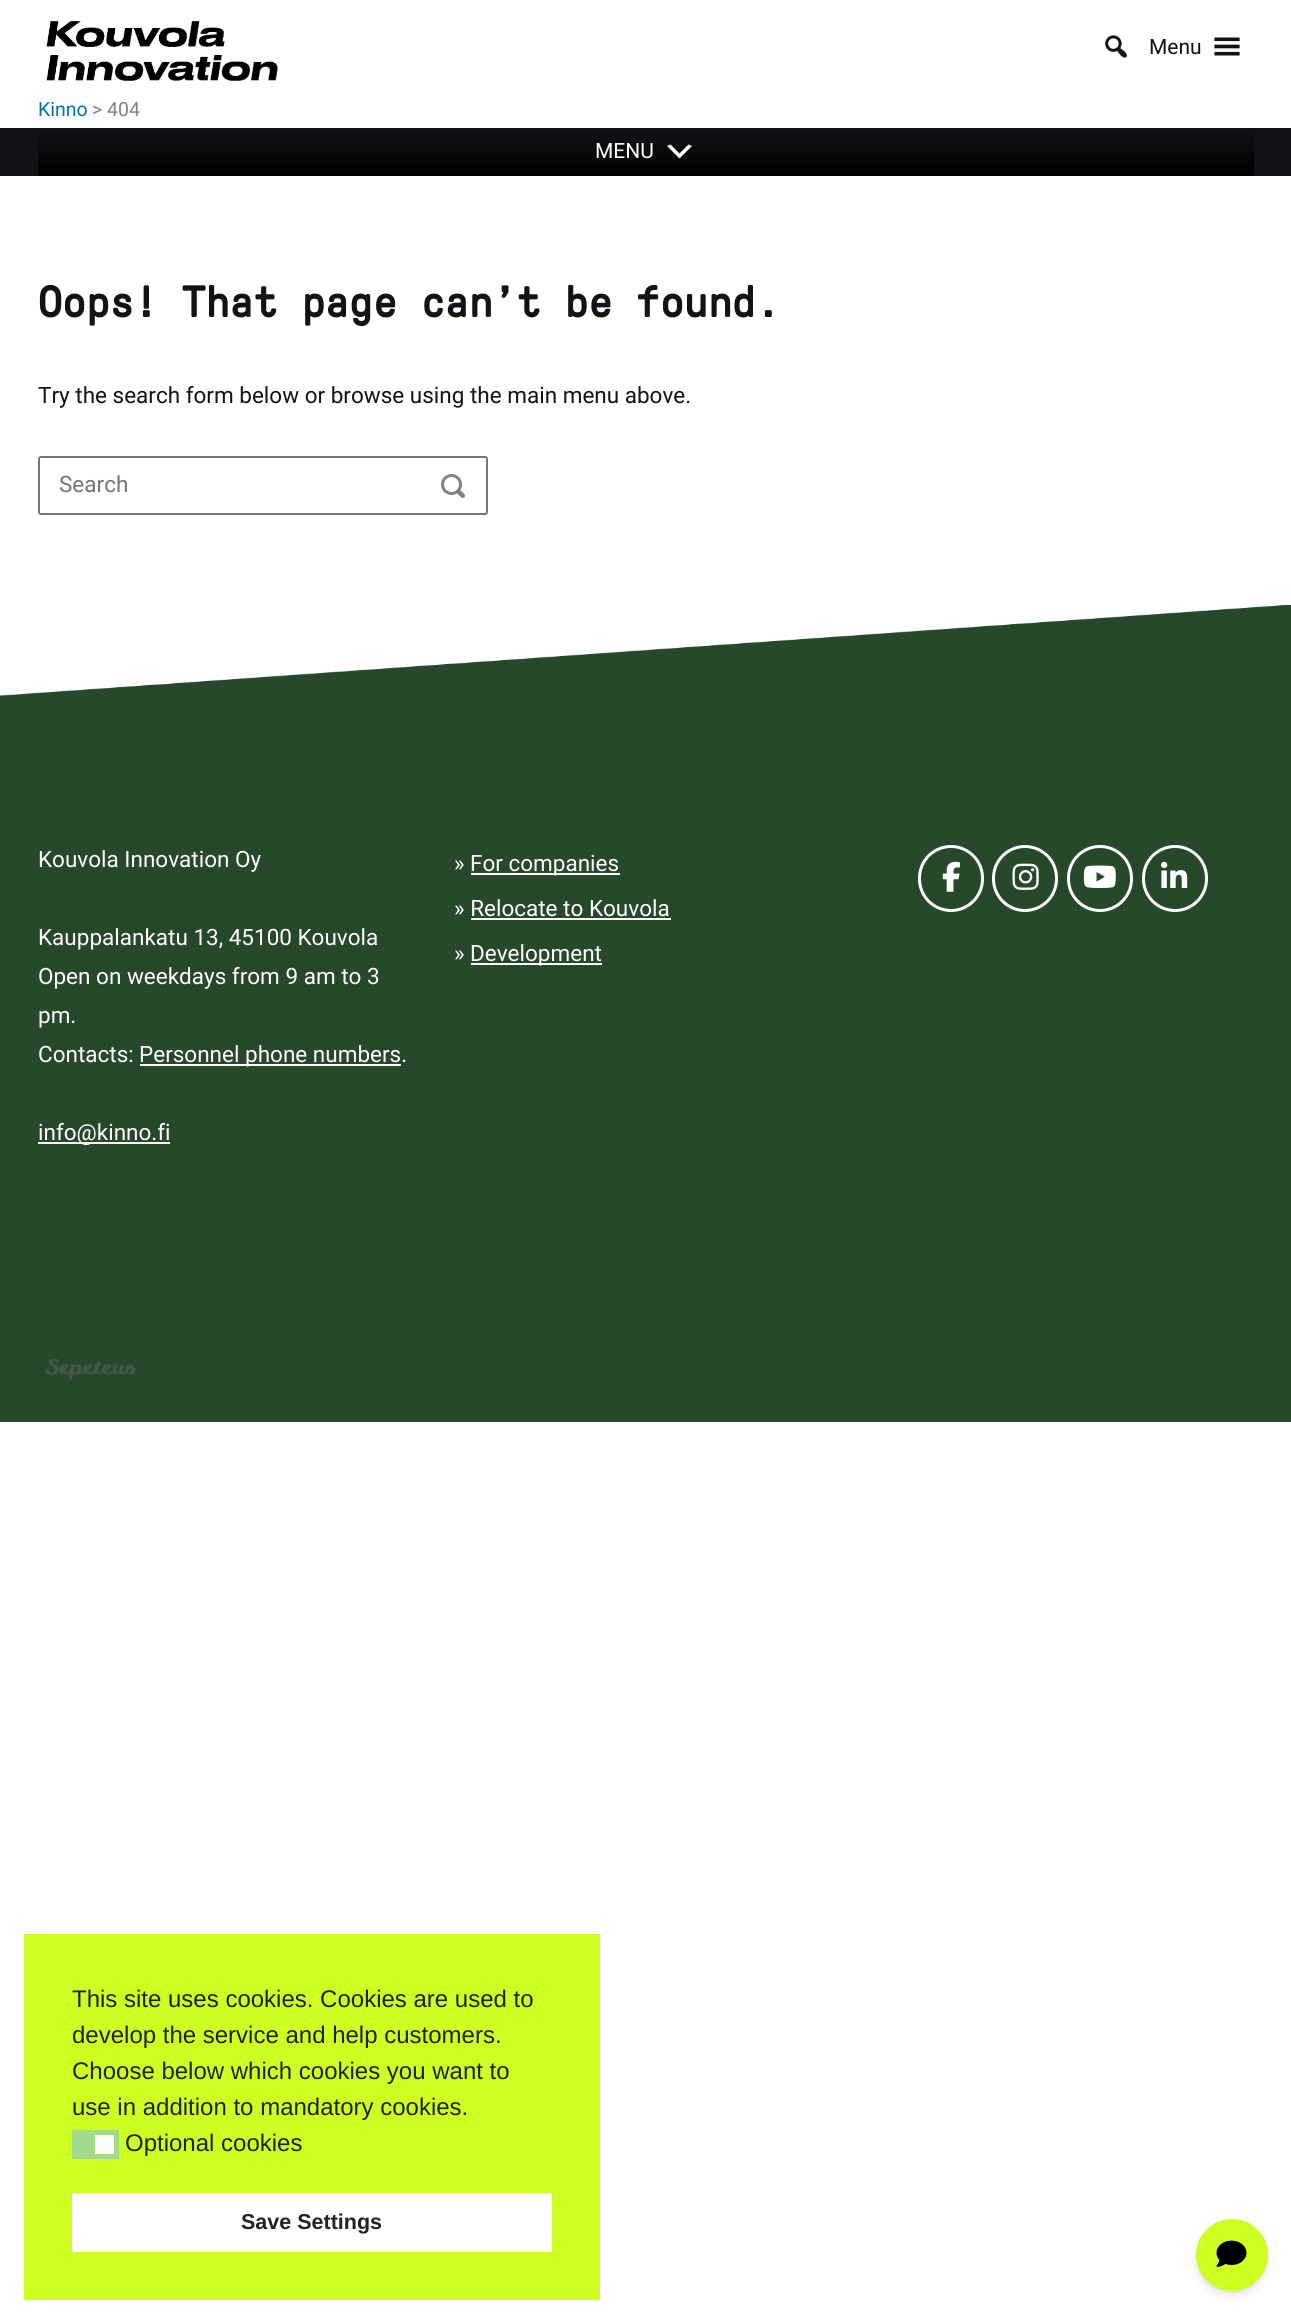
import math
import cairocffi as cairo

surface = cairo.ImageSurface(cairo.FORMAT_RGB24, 1291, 2323)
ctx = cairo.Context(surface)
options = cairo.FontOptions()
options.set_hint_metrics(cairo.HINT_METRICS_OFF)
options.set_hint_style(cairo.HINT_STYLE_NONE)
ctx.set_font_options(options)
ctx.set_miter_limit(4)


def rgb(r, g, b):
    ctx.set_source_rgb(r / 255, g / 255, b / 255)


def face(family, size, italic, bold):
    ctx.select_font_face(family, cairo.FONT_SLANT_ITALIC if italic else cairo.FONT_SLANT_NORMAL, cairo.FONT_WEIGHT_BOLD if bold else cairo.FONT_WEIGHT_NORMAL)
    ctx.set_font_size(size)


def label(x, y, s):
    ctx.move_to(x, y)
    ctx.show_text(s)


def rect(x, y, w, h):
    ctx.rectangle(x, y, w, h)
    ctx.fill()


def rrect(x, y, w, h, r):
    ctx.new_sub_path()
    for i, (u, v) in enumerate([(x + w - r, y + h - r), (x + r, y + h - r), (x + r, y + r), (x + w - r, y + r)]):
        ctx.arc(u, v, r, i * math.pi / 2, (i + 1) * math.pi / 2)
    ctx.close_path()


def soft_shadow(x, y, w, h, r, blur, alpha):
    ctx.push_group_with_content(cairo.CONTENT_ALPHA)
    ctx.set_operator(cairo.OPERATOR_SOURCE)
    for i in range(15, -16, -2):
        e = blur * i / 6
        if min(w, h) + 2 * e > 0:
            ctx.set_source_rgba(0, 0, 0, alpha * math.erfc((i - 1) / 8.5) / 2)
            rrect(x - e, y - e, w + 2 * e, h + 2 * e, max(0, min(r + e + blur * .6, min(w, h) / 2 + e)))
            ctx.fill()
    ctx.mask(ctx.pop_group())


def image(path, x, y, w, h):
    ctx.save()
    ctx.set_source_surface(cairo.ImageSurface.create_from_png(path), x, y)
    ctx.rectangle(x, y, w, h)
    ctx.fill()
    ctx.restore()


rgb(255, 255, 255)
ctx.paint()
image('image0.png', 46, 21, 232, 60)
image('image1.png', 1105, 35, 22, 23)
face('Roboto', 21, 0, 0)
rgb(17, 19, 23)
label(1149, 54, 'Menu')
image('image2.png', 1214, 37, 26, 19)
face('Roboto', 19.5, 0, 0)
rgb(0, 115, 170)
label(38, 116, 'Kinno')
rgb(130, 130, 130)
label(92, 116, '> 404')
rgb(17, 19, 23)
rect(0, 128, 1291, 48)
gradient = cairo.LinearGradient(646, 127, 646, 176)
gradient.add_color_stop_rgba(0, 0.067, 0.075, 0.09, 1)
gradient.add_color_stop_rgba(1, 0, 0, 0, 1)
ctx.set_source(gradient)
rrect(38, 128, 1216, 48, 3)
ctx.fill()
face('Roboto', 21, 0, 0)
rgb(255, 255, 255)
label(595, 158, 'MENU')
ctx.new_path()
ctx.move_to(670.5, 144.5)
ctx.line_to(679.5, 153.5)
ctx.line_to(688.5, 144.5)
ctx.line_to(692, 146)
ctx.line_to(679.5, 158.5)
ctx.line_to(667, 146)
ctx.close_path()
ctx.fill()
face('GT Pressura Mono', 43.5, 0, 1)
rgb(17, 19, 23)
label(38, 317, 'Oops! That page can’t be found.')
face('Roboto', 22.5, 0, 0)
label(38, 403, 'Try the search form below or browse using the main menu above.')
rrect(39, 457, 448, 57, 2)
rgb(119, 119, 119)
ctx.stroke()
rgb(117, 117, 117)
label(59, 492, 'Search')
image('image3.png', 441, 474, 24, 24)
rgb(40, 72, 43)
rect(0, 605, 1291, 817)
image('image4.png', 0, 605, 1289, 91)
rgb(255, 255, 255)
label(38, 867, 'Kouvola Innovation Oy')
label(38, 945, 'Kauppalankatu 13, 45100 Kouvola')
label(38, 984, 'Open on weekdays from 9 am to 3')
label(38, 1023, 'pm.')
label(38, 1062, 'Contacts:')
rect(140, 1064, 261, 2)
label(139, 1062, 'Personnel phone numbers.')
rect(38, 1142, 132, 2)
label(38, 1140, 'info@kinno.fi')
label(454, 871, '»')
rect(471, 873, 149, 2)
label(470, 871, 'For companies')
label(454, 916, '» Relocate to Kouvola')
rect(471, 918, 200, 2)
label(454, 961, '»')
rect(471, 963, 131, 2)
label(470, 961, 'Development')
rrect(919.5, 846.5, 63, 64, 31.5)
ctx.set_line_width(3)
ctx.stroke()
image('image5.png', 942, 861, 18, 31)
rrect(993.5, 846.5, 63, 64, 31.5)
ctx.stroke()
image('image6.png', 1012, 863, 27, 27)
rrect(1068.5, 846.5, 63, 64, 31.5)
ctx.stroke()
image('image7.png', 1083, 865, 33, 23)
rrect(1143.5, 846.5, 63, 64, 31.5)
ctx.stroke()
image('image8.png', 1161, 861, 27, 27)
image('image9.png', 45, 1359, 91, 21)
rgb(206, 255, 35)
rect(24, 1934, 576, 366)
face('Liberation Sans', 24, 0, 0)
rgb(34, 34, 34)
label(72, 2007, 'This site uses cookies. Cookies are used to')
label(72, 2043, 'develop the service and help customers.')
label(72, 2079, 'Choose below which cookies you want to')
label(72, 2115, 'use in addition to mandatory cookies.')
rgb(160, 219, 142)
rect(72, 2130, 47, 29)
rgb(255, 255, 255)
rect(95, 2135, 19, 19)
rgb(34, 34, 34)
label(125, 2151, 'Optional cookies')
rgb(255, 255, 255)
rect(72, 2193, 480, 59)
face('Liberation Sans', 21.5, 0, 1)
rgb(34, 34, 34)
label(241, 2229, 'Save Settings')
rgb(0, 0, 0)
soft_shadow(1197, 2223, 69, 69, 34.5, 3, 0.06)
soft_shadow(1197, 2226, 69, 69, 34.5, 4.5, 0.1)
rgb(206, 255, 35)
ctx.arc(1232, 2255, 36, 0, 2 * math.pi)
ctx.fill()
image('image10.png', 1216, 2240, 31, 27)
surface.write_to_png('render.png')
